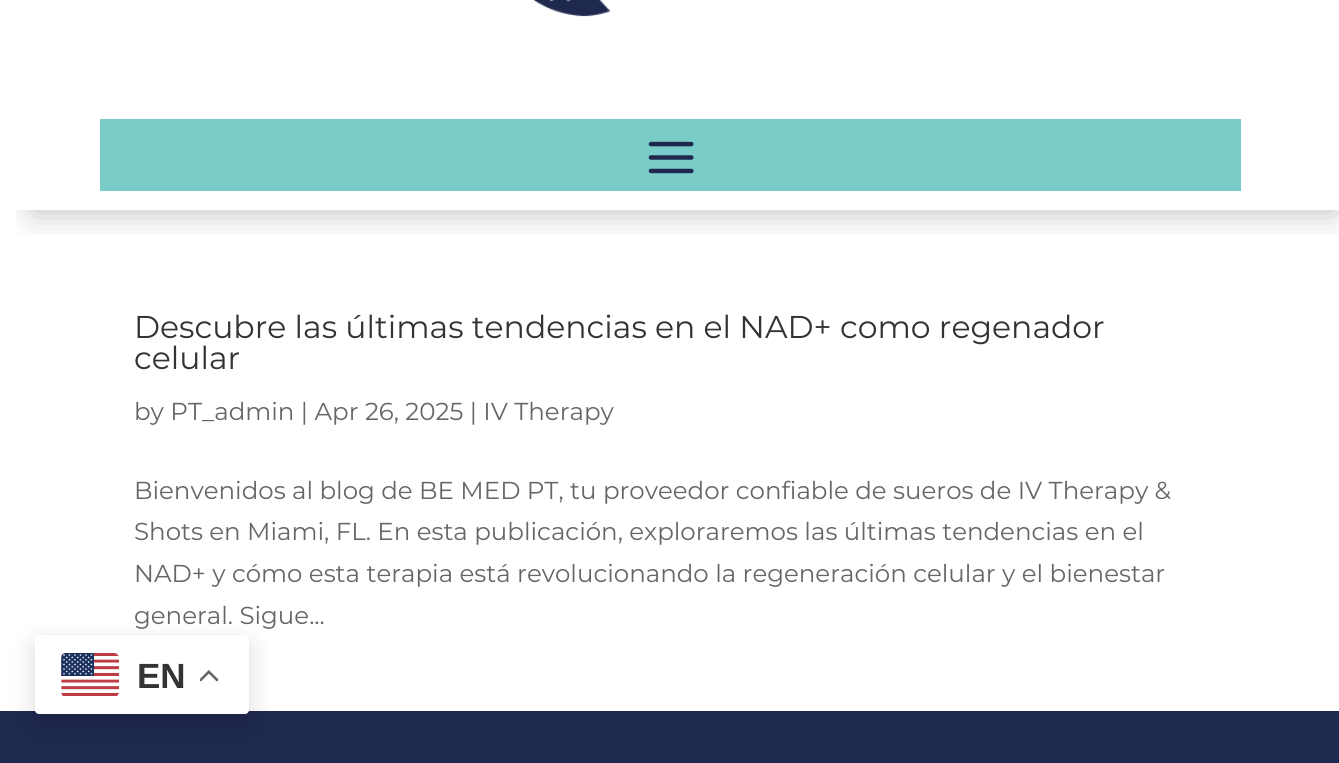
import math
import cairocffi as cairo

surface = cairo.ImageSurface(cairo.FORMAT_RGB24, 1339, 763)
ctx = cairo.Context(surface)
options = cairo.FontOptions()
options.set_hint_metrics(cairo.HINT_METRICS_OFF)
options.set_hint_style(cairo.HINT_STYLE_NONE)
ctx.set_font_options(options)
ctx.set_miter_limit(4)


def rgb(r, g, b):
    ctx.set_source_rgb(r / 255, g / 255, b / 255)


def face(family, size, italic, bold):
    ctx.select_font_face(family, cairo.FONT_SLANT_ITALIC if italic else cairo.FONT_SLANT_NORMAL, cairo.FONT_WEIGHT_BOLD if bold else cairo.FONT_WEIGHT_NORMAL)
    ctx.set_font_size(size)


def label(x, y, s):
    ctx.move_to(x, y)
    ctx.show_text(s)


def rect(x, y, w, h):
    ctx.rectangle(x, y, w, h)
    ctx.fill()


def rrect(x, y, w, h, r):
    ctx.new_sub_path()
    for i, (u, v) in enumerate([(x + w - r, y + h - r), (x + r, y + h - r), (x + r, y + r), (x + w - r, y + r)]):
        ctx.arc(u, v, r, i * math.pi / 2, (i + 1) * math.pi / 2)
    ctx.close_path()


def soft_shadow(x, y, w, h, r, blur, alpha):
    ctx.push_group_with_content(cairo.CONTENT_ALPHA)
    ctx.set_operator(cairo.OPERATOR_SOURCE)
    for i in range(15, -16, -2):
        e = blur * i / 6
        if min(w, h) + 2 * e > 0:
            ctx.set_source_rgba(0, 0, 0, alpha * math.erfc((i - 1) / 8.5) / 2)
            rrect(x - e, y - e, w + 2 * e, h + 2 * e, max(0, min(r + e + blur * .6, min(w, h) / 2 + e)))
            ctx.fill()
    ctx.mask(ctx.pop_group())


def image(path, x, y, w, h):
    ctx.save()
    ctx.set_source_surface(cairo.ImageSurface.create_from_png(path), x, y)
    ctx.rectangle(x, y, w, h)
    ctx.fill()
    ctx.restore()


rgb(255, 255, 255)
ctx.paint()
ctx.save()
ctx.rectangle(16, 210, 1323, 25)
ctx.clip()
rgb(0, 0, 0)
soft_shadow(33, -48, 1302, 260, 0, 16, 0.26)
ctx.restore()
image('image0.png', 533, 0, 78, 17)
rgb(122, 204, 200)
rect(100, 119, 1141, 72)
image('image1.png', 648, 141, 46, 33)
face('Montserrat', 31.5, 0, 0)
rgb(51, 51, 51)
label(134, 338, 'Descubre las últimas tendencias en el NAD+ como regenador')
label(134, 369, 'celular')
face('Montserrat', 24.5, 0, 0)
rgb(102, 102, 102)
label(134, 420, 'by PT_admin | Apr 26, 2025 | IV Therapy')
label(134, 499, 'Bienvenidos al blog de BE MED PT, tu proveedor confiable de sueros de IV Therapy &')
label(134, 540, 'Shots en Miami, FL. En esta publicación, exploraremos las últimas tendencias en el')
label(134, 582, 'NAD+ y cómo esta terapia está revolucionando la regeneración celular y el bienestar')
label(134, 624, 'general. Sigue...')
rgb(31, 40, 79)
rect(0, 711, 1339, 52)
rgb(0, 0, 0)
soft_shadow(35, 644, 214, 79, 4, 13, 0.15)
rgb(255, 255, 255)
rrect(35, 635, 214, 79, 4)
ctx.fill()
image('image2.png', 61, 653, 58, 43)
face('Liberation Sans', 35, 0, 1)
rgb(51, 51, 51)
label(137, 688, 'EN')
image('image3.png', 200, 670, 19, 12)
surface.write_to_png('render.png')
